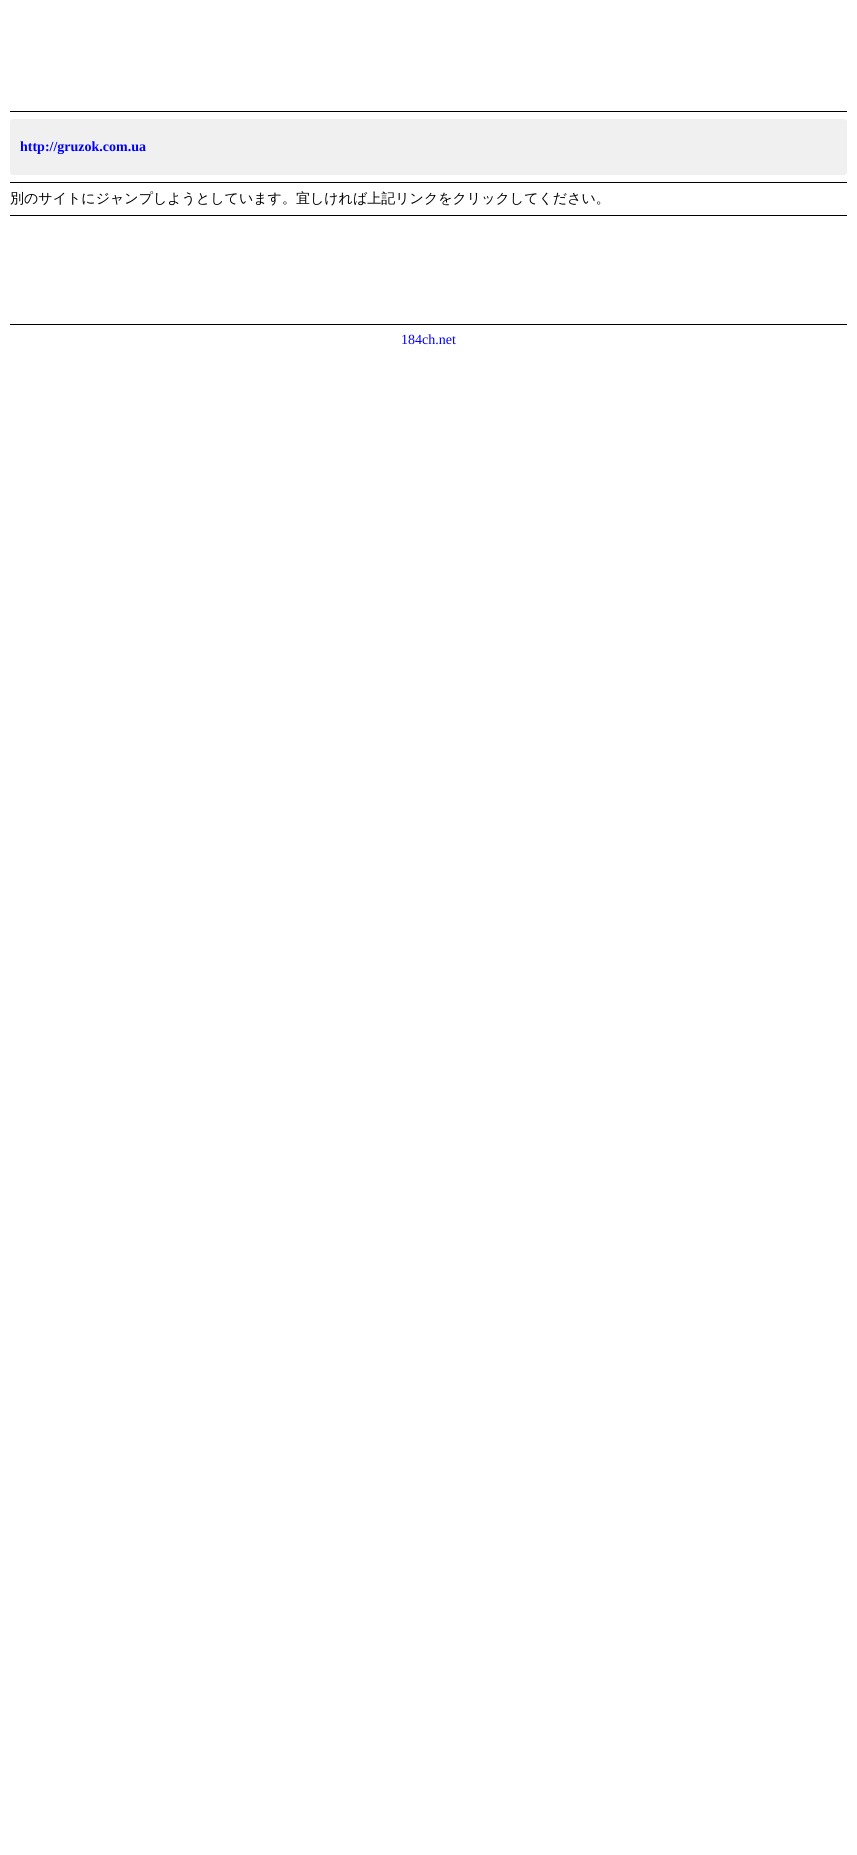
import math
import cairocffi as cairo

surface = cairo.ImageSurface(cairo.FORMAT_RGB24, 857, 1855)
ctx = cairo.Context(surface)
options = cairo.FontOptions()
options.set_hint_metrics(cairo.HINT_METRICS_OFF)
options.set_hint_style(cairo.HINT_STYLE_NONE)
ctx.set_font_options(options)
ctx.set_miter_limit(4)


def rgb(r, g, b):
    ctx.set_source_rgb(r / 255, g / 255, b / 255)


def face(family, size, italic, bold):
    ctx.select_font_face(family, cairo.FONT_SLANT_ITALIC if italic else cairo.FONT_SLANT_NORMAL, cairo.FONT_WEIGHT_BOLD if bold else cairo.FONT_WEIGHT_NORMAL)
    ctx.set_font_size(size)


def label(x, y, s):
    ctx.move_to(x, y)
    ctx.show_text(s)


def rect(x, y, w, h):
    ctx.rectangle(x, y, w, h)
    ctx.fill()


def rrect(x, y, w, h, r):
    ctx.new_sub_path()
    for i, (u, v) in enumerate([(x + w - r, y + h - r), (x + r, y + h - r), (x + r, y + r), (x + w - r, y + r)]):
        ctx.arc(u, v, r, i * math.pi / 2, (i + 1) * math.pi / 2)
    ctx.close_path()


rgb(255, 255, 255)
ctx.paint()
rgb(0, 0, 0)
rect(10, 111, 837, 1)
rgb(240, 240, 240)
rrect(10, 119, 837, 56, 3)
ctx.fill()
face('Liberation Serif', 14, 0, 1)
rgb(0, 0, 255)
label(20, 151, 'http://gruzok.com.ua')
rgb(0, 0, 0)
rect(10, 182, 837, 1)
face('WenQuanYi Zen Hei Medium', 14, 0, 0)
label(10, 203, '別のサイトにジャンプしようとしています。宜しければ上記リンクをクリックしてください。')
rect(10, 215, 837, 1)
rect(10, 324, 837, 1)
face('Liberation Serif', 14, 0, 0)
rgb(0, 0, 255)
label(401, 344, '184ch.net')
surface.write_to_png('render.png')
